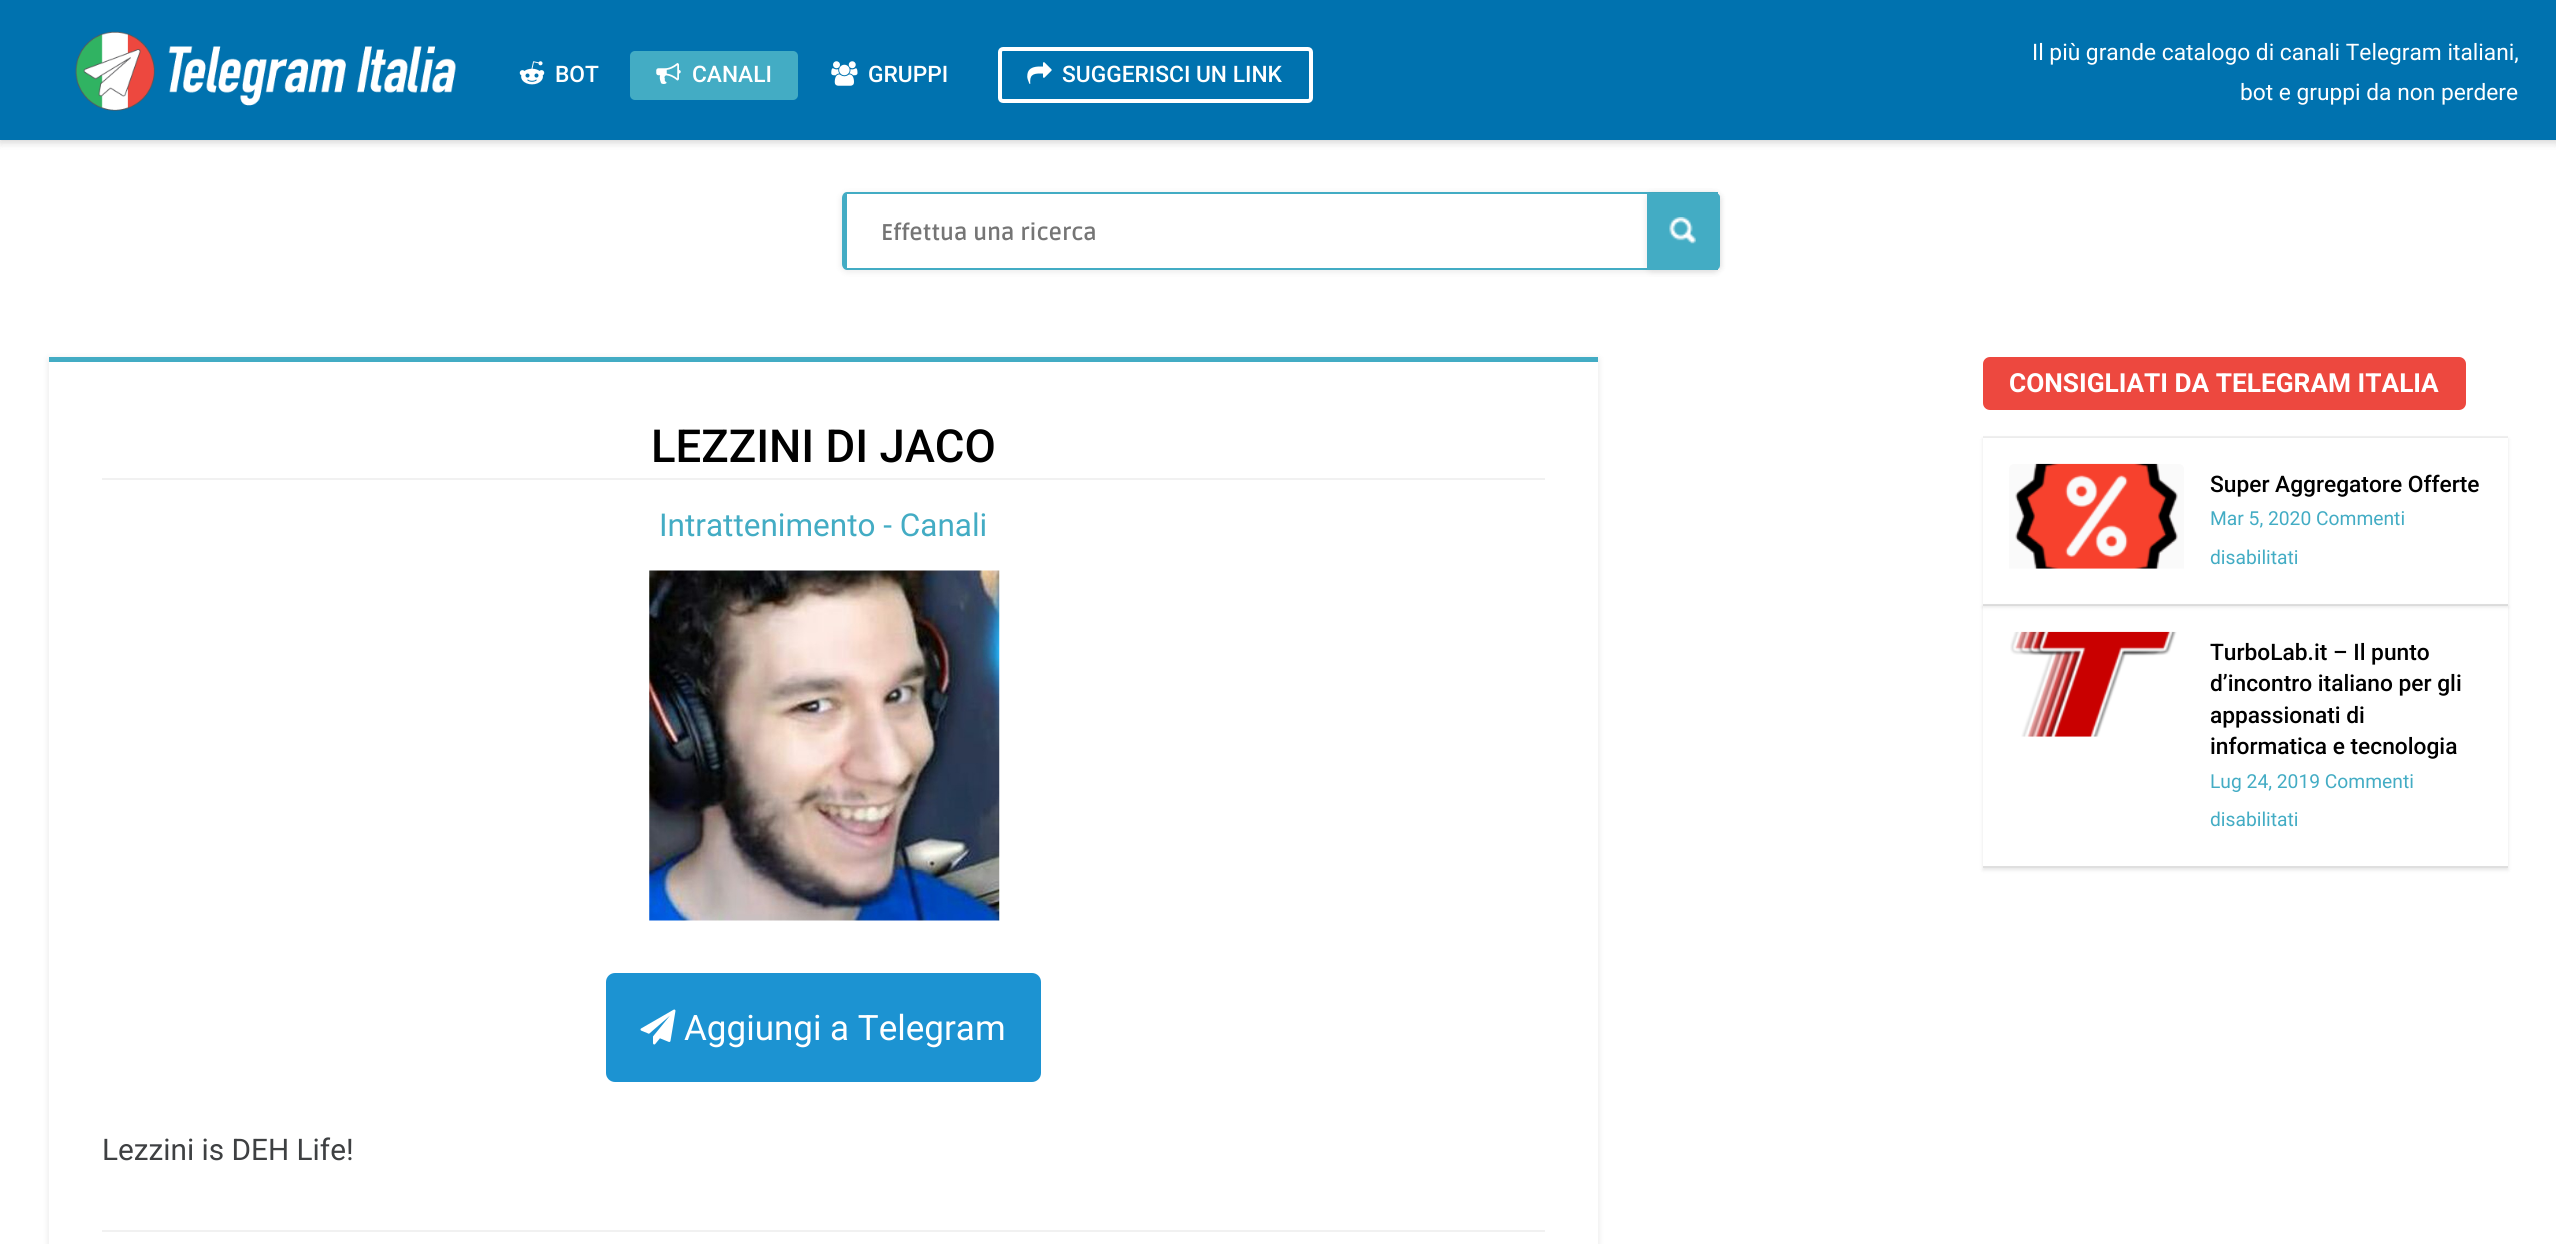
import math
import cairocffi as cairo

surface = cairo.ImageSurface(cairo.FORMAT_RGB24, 2556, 1244)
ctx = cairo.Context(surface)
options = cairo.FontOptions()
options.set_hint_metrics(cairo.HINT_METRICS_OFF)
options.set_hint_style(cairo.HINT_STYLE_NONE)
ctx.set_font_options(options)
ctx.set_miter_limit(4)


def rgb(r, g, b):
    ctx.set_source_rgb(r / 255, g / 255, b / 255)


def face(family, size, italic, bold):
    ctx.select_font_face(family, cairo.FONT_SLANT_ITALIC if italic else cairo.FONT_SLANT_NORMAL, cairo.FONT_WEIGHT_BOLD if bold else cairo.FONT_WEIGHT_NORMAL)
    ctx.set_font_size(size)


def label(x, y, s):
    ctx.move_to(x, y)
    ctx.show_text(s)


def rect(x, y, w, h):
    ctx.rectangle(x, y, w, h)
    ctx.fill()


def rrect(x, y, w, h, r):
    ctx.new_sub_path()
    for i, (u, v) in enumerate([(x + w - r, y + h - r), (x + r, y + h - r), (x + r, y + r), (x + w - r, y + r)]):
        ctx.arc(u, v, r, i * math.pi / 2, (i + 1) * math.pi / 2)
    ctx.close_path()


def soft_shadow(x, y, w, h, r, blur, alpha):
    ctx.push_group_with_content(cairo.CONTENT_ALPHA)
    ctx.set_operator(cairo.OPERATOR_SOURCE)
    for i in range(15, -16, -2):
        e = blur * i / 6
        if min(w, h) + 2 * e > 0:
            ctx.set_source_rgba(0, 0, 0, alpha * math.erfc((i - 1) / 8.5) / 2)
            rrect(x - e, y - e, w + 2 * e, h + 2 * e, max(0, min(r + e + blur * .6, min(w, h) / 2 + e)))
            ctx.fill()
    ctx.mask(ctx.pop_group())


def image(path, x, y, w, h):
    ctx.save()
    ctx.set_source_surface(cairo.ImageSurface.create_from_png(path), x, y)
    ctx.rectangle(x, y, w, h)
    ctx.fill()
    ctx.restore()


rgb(255, 255, 255)
ctx.paint()
rgb(0, 0, 0)
soft_shadow(0, 2, 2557, 140, 0, 4.5, 0.1)
soft_shadow(0, 2, 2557, 140, 0, 4.5, 0.1)
rgb(0, 114, 175)
rect(0, 0, 2556, 140)
image('image0.png', 75, 31, 381, 80)
image('image1.png', 519, 61, 26, 24)
face('Roboto Medium', 22.75, 0, 0)
rgb(255, 255, 255)
label(555, 82, 'BOT')
rgb(67, 172, 196)
rrect(630, 51, 168, 49, 5)
ctx.fill()
image('image2.png', 656, 63, 25, 21)
rgb(255, 255, 255)
label(692, 82, 'CANALI')
image('image3.png', 831, 61, 27, 25)
label(868, 82, 'GRUPPI')
rrect(1000, 49, 311, 52, 3)
ctx.set_line_width(4)
ctx.stroke()
image('image4.png', 1027, 62, 25, 22)
label(1062, 82, 'SUGGERISCI UN LINK')
face('Roboto', 22.75, 0, 0)
label(2032, 60, 'Il più grande catalogo di canali Telegram italiani,')
label(2240, 100, 'bot e gruppi da non perdere')
rgb(0, 0, 0)
soft_shadow(842, 194, 877, 77, 5, 3.5, 0.1)
rgb(255, 255, 255)
ctx.new_path()
ctx.move_to(847, 193)
ctx.line_to(1719, 193)
ctx.line_to(1719, 270)
ctx.line_to(847, 270)
ctx.curve_to(844, 270, 842, 268, 842, 265)
ctx.line_to(842, 198)
ctx.curve_to(842, 195, 844, 193, 847, 193)
ctx.close_path()
ctx.fill()
rgb(67, 172, 196)
ctx.set_fill_rule(cairo.FILL_RULE_EVEN_ODD)
ctx.new_path()
ctx.move_to(847, 192)
ctx.line_to(1718, 192)
ctx.line_to(1718, 270)
ctx.line_to(847, 270)
ctx.curve_to(844, 270, 842, 267, 842, 264)
ctx.line_to(842, 198)
ctx.curve_to(842, 195, 844, 192, 847, 192)
ctx.close_path()
ctx.move_to(847, 194)
ctx.line_to(1718, 194)
ctx.line_to(1718, 268)
ctx.line_to(847, 268)
ctx.close_path()
ctx.fill()
face('Ruda', 22.75, 0, 1)
rgb(117, 117, 117)
label(881, 240, 'Effettua una ricerca')
rgb(0, 0, 0)
soft_shadow(1647, 194, 73, 77, 5, 3.5, 0.1)
rgb(67, 172, 196)
ctx.new_path()
ctx.move_to(1647, 193)
ctx.line_to(1716, 193)
ctx.curve_to(1718, 193, 1720, 195, 1720, 197)
ctx.line_to(1720, 265)
ctx.curve_to(1720, 268, 1718, 270, 1715, 270)
ctx.line_to(1647, 270)
ctx.close_path()
ctx.fill()
image('image5.png', 1669, 217, 27, 27)
rgb(0, 0, 0)
soft_shadow(49, 359, 1549, 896, 0, 3.5, 0.1)
rgb(255, 255, 255)
rect(49, 362, 1549, 882)
rgb(67, 172, 196)
rect(49, 357, 1549, 5)
face('Roboto Medium', 45.5, 0, 0)
rgb(0, 0, 0)
label(651, 462, 'LEZZINI DI JACO')
rgb(241, 241, 241)
rect(102, 478, 1443, 2)
face('Roboto', 31.5, 0, 0)
rgb(67, 172, 196)
label(659, 536, 'Intrattenimento - Canali')
image('image6.png', 649, 570, 351, 351)
rgb(28, 147, 210)
rrect(606, 973, 435, 109, 9)
ctx.fill()
image('image7.png', 640, 1009, 36, 36)
face('Roboto', 35, 0, 0)
rgb(255, 255, 255)
label(684, 1040, 'Aggiungi a Telegram')
face('Roboto', 29.75, 0, 0)
rgb(62, 64, 66)
label(102, 1160, 'Lezzini is DEH Life!')
rgb(241, 241, 241)
rect(102, 1230, 1443, 2)
rgb(237, 72, 63)
rrect(1983, 357, 483, 53, 7)
ctx.fill()
face('Roboto', 26.25, 0, 1)
rgb(255, 255, 255)
label(2009, 392, 'CONSIGLIATI DA TELEGRAM ITALIA')
rgb(241, 241, 241)
rect(1983, 436, 525, 2)
ctx.save()
ctx.new_path()
ctx.move_to(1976, 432)
ctx.line_to(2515, 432)
ctx.line_to(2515, 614)
ctx.line_to(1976, 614)
ctx.close_path()
ctx.move_to(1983, 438)
ctx.line_to(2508, 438)
ctx.line_to(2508, 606)
ctx.line_to(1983, 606)
ctx.close_path()
ctx.clip()
rgb(0, 0, 0)
soft_shadow(1983, 439, 525, 168, 0, 2, 0.1)
ctx.restore()
rgb(223, 223, 223)
rect(1983, 604, 525, 2)
image('image8.png', 2009, 463, 175, 106)
face('Roboto Medium', 22.75, 0, 0)
rgb(0, 0, 0)
label(2210, 492, 'Super Aggregatore Offerte')
face('Roboto', 19.25, 0, 0)
rgb(67, 172, 196)
label(2210, 525, 'Mar 5, 2020 Commenti')
label(2210, 564, 'disabilitati')
ctx.save()
ctx.new_path()
ctx.move_to(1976, 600)
ctx.line_to(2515, 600)
ctx.line_to(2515, 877)
ctx.line_to(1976, 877)
ctx.close_path()
ctx.move_to(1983, 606)
ctx.line_to(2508, 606)
ctx.line_to(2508, 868)
ctx.line_to(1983, 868)
ctx.close_path()
ctx.clip()
rgb(0, 0, 0)
soft_shadow(1983, 607, 525, 263, 0, 2, 0.1)
ctx.restore()
rgb(223, 223, 223)
rect(1983, 866, 525, 2)
image('image9.png', 2010, 631, 167, 106)
face('Roboto Medium', 22.75, 0, 0)
rgb(0, 0, 0)
label(2210, 660, 'TurboLab.it – Il punto')
label(2210, 691, 'd’incontro italiano per gli')
label(2210, 723, 'appassionati di')
label(2210, 754, 'informatica e tecnologia')
face('Roboto', 19.25, 0, 0)
rgb(67, 172, 196)
label(2210, 788, 'Lug 24, 2019 Commenti')
label(2210, 826, 'disabilitati')
surface.write_to_png('render.png')
